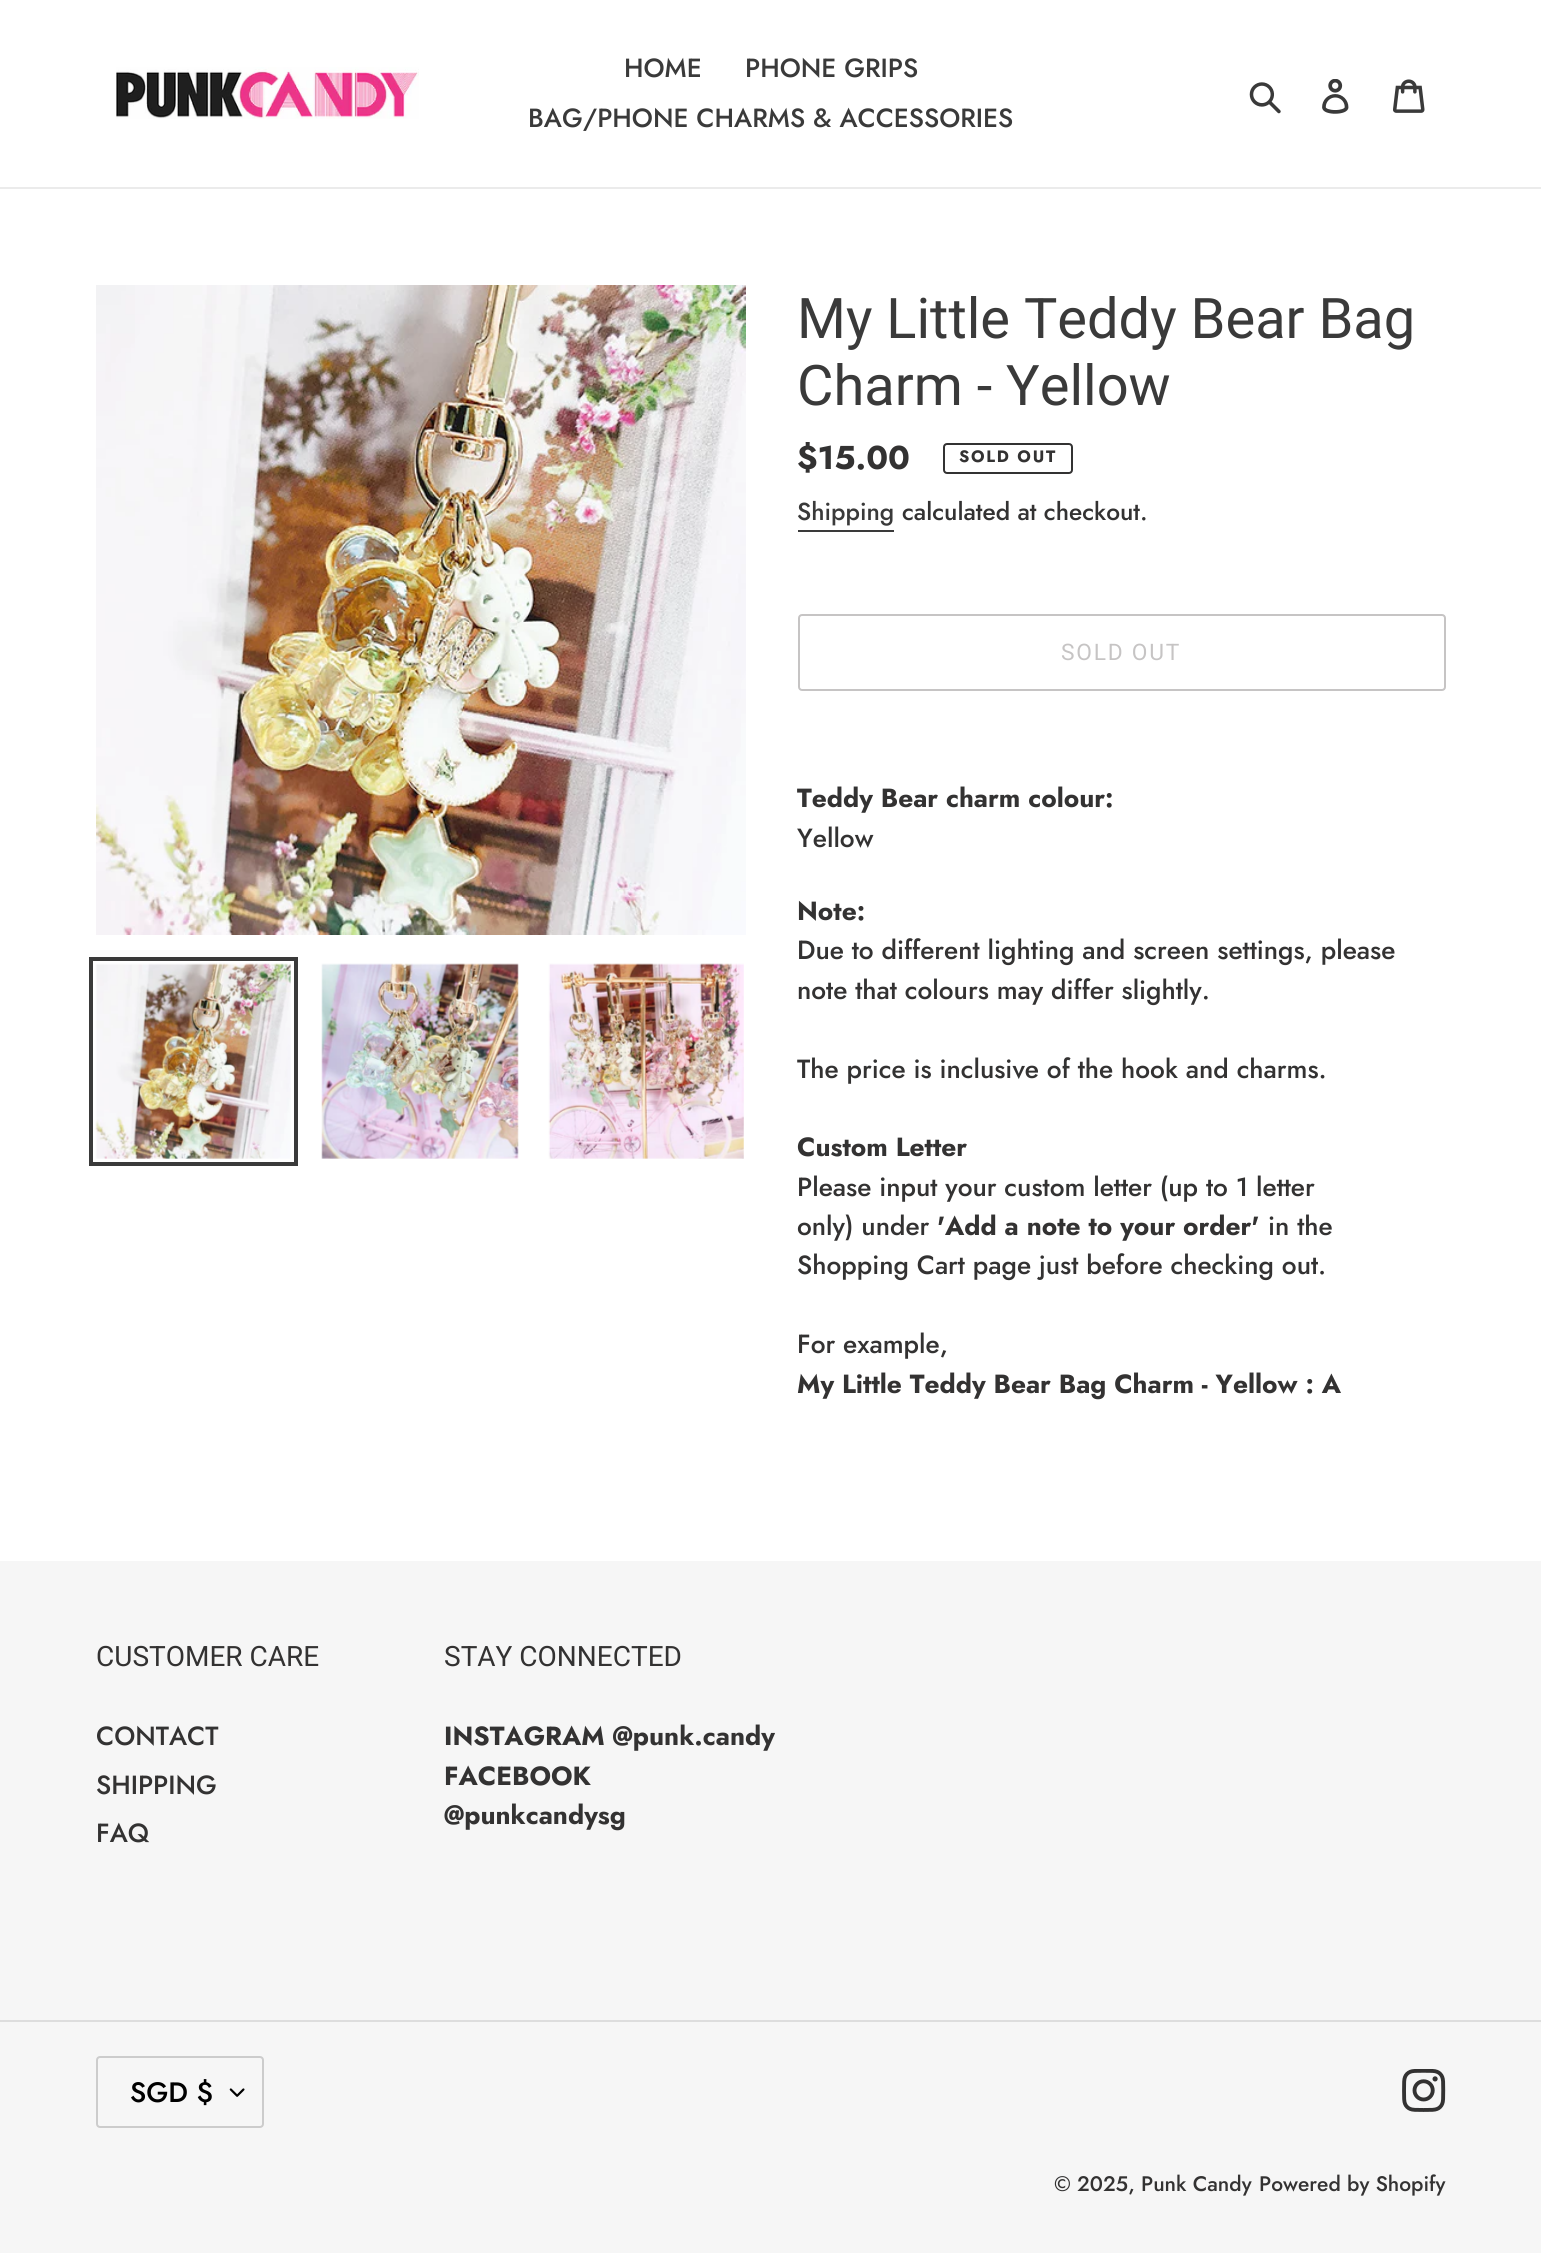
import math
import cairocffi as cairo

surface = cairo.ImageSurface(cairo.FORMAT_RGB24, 1541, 2253)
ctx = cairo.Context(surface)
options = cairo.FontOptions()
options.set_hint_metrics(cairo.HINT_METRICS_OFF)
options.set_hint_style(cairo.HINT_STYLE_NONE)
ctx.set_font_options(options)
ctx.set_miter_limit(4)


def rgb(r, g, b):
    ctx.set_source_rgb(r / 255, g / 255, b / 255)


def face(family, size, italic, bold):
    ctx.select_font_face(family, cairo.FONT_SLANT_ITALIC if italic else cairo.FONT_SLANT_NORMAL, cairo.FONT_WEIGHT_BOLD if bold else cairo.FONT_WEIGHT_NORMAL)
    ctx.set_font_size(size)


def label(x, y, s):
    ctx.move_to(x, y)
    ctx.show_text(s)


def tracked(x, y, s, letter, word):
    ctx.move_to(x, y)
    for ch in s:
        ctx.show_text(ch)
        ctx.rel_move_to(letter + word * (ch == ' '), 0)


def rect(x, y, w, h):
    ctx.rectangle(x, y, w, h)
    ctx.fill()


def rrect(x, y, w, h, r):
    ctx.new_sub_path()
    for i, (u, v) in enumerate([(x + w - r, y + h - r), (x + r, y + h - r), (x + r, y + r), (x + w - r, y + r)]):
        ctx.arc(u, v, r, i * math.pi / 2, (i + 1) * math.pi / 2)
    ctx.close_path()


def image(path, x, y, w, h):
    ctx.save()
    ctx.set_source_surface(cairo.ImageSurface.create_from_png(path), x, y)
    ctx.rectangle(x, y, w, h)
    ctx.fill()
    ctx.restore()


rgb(255, 255, 255)
ctx.paint()
rgb(235, 235, 235)
rect(0, 187, 1541, 2)
image('image0.png', 116, 67, 303, 52)
face('Jost Medium', 26.25, 0, 0)
rgb(58, 58, 58)
label(624, 77, 'HOME')
label(745, 77, 'PHONE GRIPS')
label(528, 127, 'BAG/PHONE CHARMS & ACCESSORIES')
image('image1.png', 1249, 82, 32, 32)
image('image2.png', 1322, 79, 27, 35)
image('image3.png', 1393, 79, 32, 34)
image('image4.png', 96, 285, 650, 650)
ctx.rectangle(91, 959, 205, 205)
ctx.set_line_width(4)
ctx.stroke()
image('image5.png', 95, 963, 196, 196)
image('image6.png', 321, 963, 198, 196)
image('image7.png', 548, 963, 196, 196)
face('Roboto', 56, 0, 0)
label(797, 338, 'My Little Teddy Bear Bag')
label(797, 405, 'Charm - Yellow')
face('Jost', 33, 0, 1)
rgb(51, 50, 50)
label(797, 469, '$15.00')
rrect(944, 444, 128, 29, 3)
ctx.set_line_width(2)
ctx.stroke()
face('Jost', 16.5, 0, 1)
tracked(959, 462, 'SOLD OUT', 1.75, 0)
face('Jost Medium', 24.5, 0, 0)
rgb(58, 58, 58)
label(797, 520, 'Shipping')
rect(798, 530, 96, 2)
rgb(51, 50, 50)
label(902, 520, 'calculated at checkout.')
rrect(799, 615, 646, 75, 3)
rgb(198, 196, 196)
ctx.stroke()
face('Roboto', 22.75, 0, 0)
tracked(1061, 660, 'SOLD OUT', 1.75, 0)
face('Jost', 26.25, 0, 1)
rgb(51, 50, 50)
label(797, 807, 'Teddy Bear charm colour:')
face('Jost Medium', 26.25, 0, 0)
label(797, 847, 'Yellow')
face('Jost', 26.25, 0, 1)
label(797, 920, 'Note:')
face('Jost Medium', 26.25, 0, 0)
label(797, 959, 'Due to different lighting and screen settings, please')
label(797, 999, 'note that colours may differ slightly.')
label(797, 1078, 'The price is inclusive of the hook and charms.')
face('Jost', 26.25, 0, 1)
label(797, 1156, 'Custom Letter')
face('Jost Medium', 26.25, 0, 0)
label(797, 1196, 'Please input your custom letter (up to 1 letter')
label(797, 1235, 'only) under')
face('Jost', 26.25, 0, 1)
label(937, 1235, '\'Add a note to your order\'')
face('Jost Medium', 26.25, 0, 0)
label(1268, 1235, 'in the')
label(797, 1274, 'Shopping Cart page just before checking out.')
label(797, 1353, 'For example,')
face('Jost', 26.25, 0, 1)
label(797, 1393, 'My Little Teddy Bear Bag Charm - Yellow : A')
rgb(246, 246, 246)
rect(0, 1561, 1541, 692)
face('Roboto', 28, 0, 0)
rgb(51, 50, 50)
label(96, 1666, 'CUSTOMER CARE')
face('Jost Medium', 26.25, 0, 0)
label(96, 1745, 'CONTACT')
label(96, 1794, 'SHIPPING')
label(96, 1842, 'FAQ')
face('Roboto', 28, 0, 0)
label(444, 1666, 'STAY CONNECTED')
face('Jost', 26.25, 0, 1)
label(444, 1745, 'INSTAGRAM @punk.candy')
label(444, 1785, 'FACEBOOK')
label(444, 1824, '@punkcandysg')
rgb(221, 221, 221)
rect(0, 2020, 1541, 2)
image('image8.png', 229, 2088, 16, 9)
rrect(97, 2057, 166, 70, 3)
rgb(204, 204, 204)
ctx.stroke()
face('Jost Medium', 28, 0, 0)
rgb(0, 0, 0)
label(130, 2102, 'SGD $')
image('image9.png', 1402, 2069, 44, 43)
face('Jost Medium', 21, 0, 0)
rgb(51, 50, 50)
label(1054, 2191, '© 2025, Punk Candy')
label(1259, 2191, 'Powered by Shopify')
surface.write_to_png('render.png')
